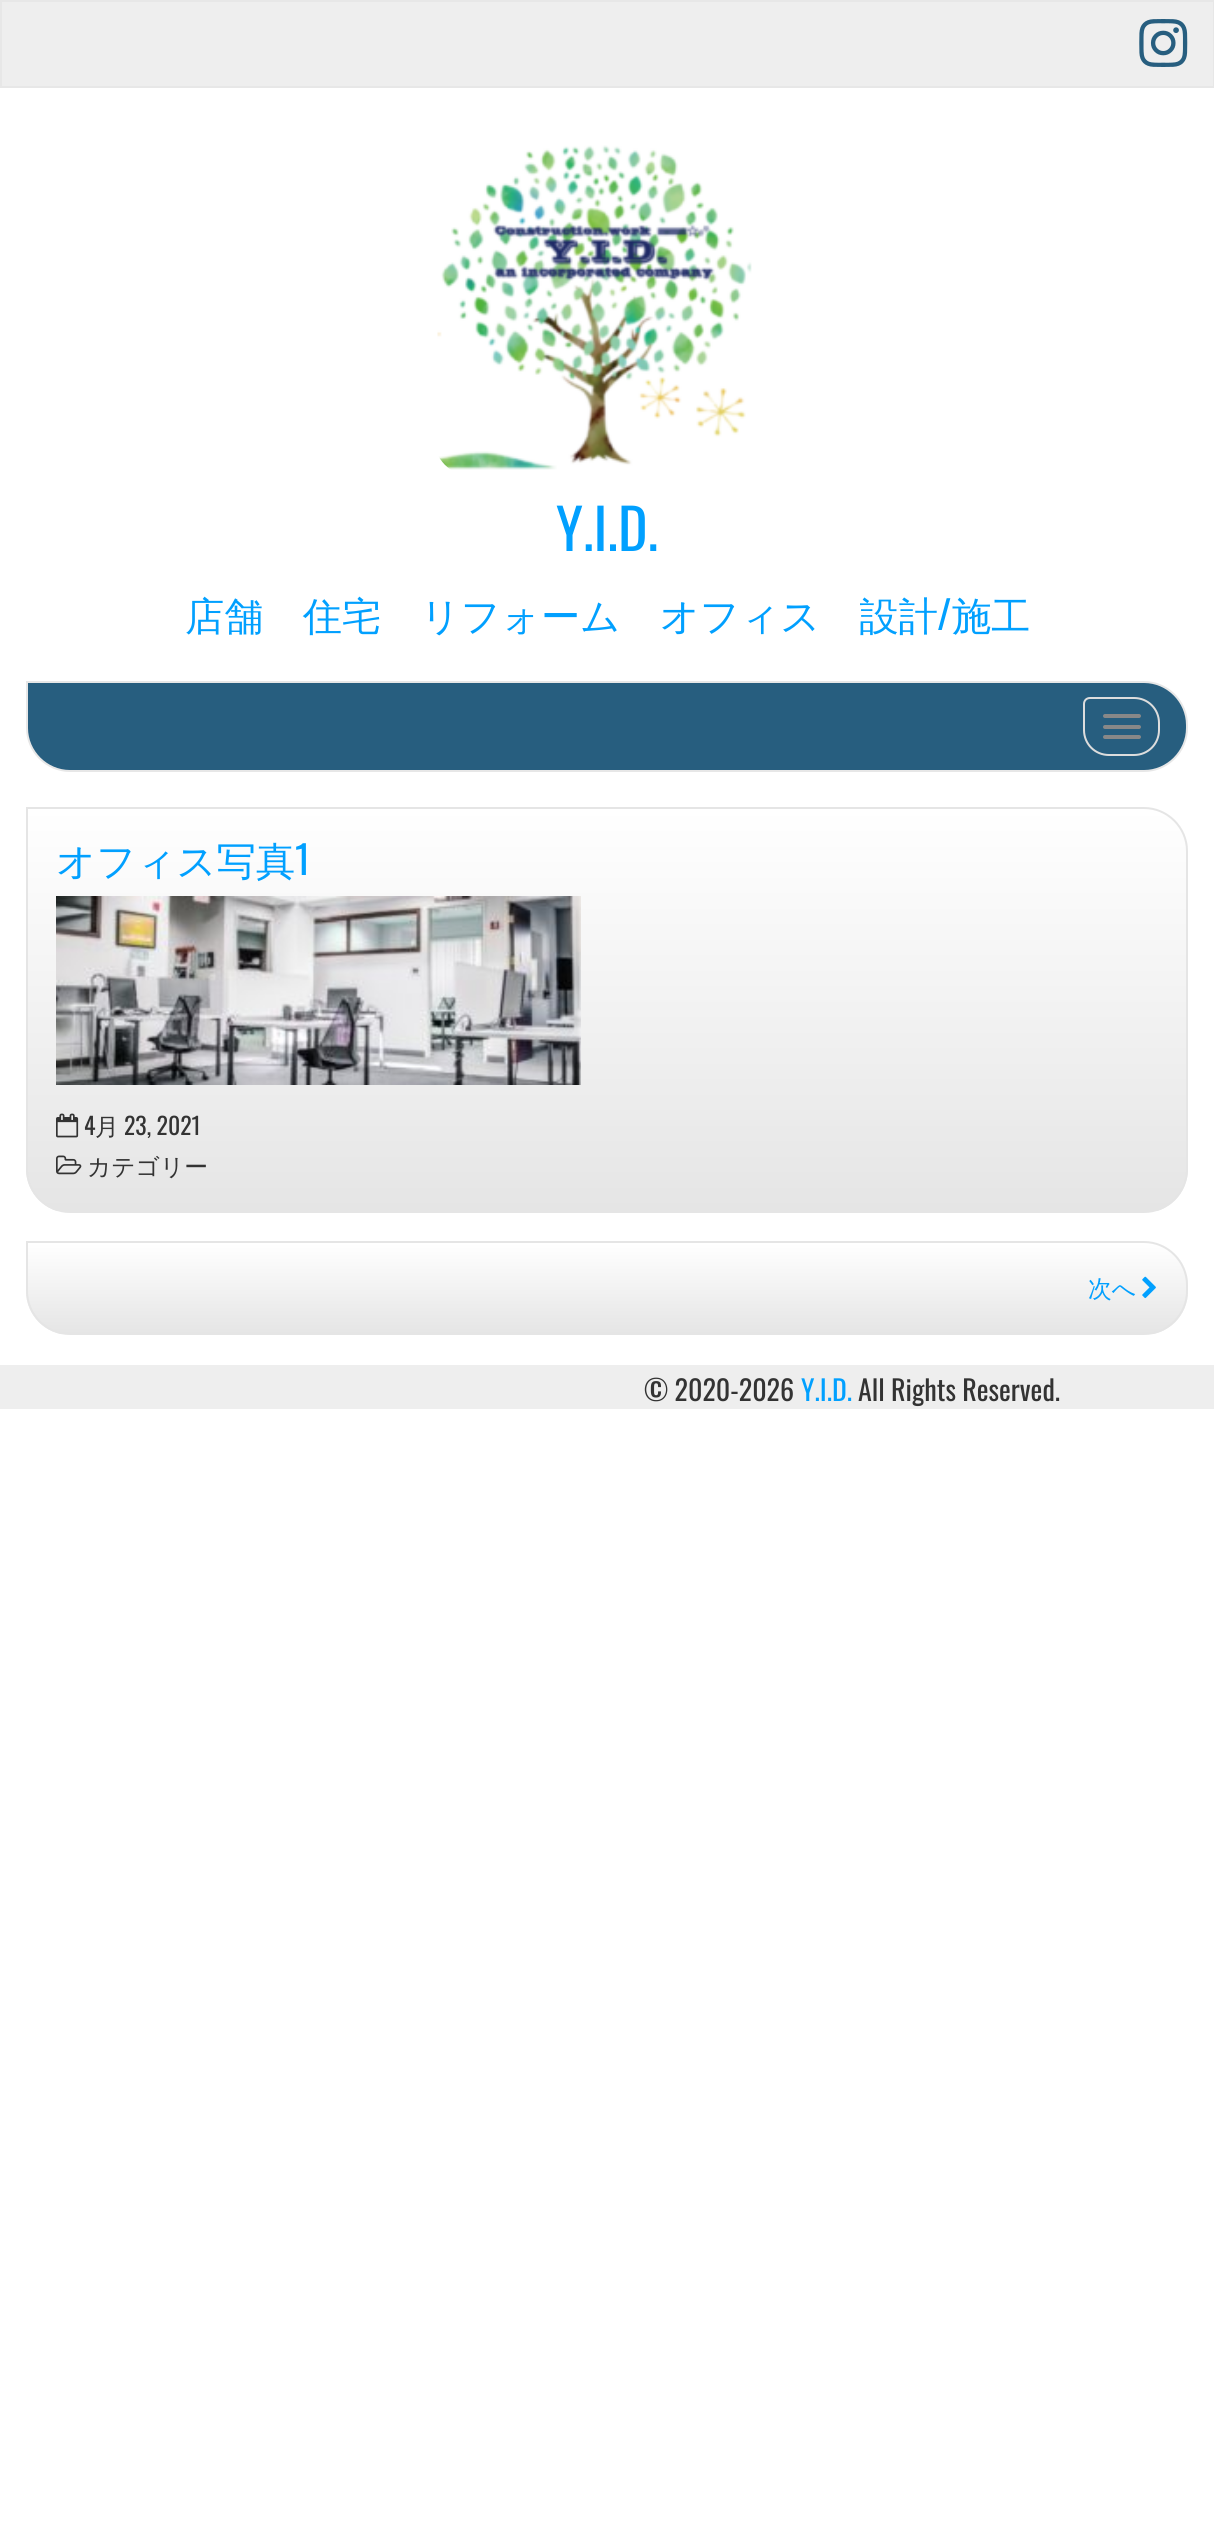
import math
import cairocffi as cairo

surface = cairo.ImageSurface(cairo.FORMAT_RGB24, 1214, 2546)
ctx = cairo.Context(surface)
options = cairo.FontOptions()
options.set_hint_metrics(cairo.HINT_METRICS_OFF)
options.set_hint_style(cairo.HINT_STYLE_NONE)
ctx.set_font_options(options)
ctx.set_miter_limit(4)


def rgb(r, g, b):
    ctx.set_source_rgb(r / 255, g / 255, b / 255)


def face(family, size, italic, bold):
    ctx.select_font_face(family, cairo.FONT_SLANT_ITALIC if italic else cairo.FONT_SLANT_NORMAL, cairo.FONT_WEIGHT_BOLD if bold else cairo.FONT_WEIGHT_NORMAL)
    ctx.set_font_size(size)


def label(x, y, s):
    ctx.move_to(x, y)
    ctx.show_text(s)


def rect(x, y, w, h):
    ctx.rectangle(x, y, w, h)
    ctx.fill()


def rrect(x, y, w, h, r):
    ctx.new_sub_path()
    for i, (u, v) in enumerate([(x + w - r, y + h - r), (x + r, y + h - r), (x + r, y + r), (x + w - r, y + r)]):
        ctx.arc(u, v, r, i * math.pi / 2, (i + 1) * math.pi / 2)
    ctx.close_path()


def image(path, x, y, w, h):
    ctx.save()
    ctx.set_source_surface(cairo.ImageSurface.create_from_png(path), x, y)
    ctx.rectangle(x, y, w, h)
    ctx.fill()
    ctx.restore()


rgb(255, 255, 255)
ctx.paint()
rgb(238, 238, 238)
ctx.rectangle(1, 1, 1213, 86)
ctx.fill_preserve()
rgb(231, 231, 231)
ctx.stroke()
image('image0.png', 1139, 19, 49, 48)
image('image1.png', 437, 145, 315, 325)
face('Oswald', 56, 0, 0)
rgb(1, 160, 255)
label(556, 551, 'Y.I.D.')
face('WenQuanYi Zen Hei Medium', 39.25, 0, 0)
label(185, 630, '店舗　住宅　リフォーム　オフィス　設計')
face('Oswald', 39.25, 0, 0)
label(937, 630, '/')
face('WenQuanYi Zen Hei Medium', 39.25, 0, 0)
label(952, 630, '施工')
rgb(39, 94, 127)
ctx.new_path()
ctx.move_to(27, 682)
ctx.line_to(1144, 682)
ctx.curve_to(1167.5, 682, 1187, 701.5, 1187, 725)
ctx.line_to(1187, 728)
ctx.curve_to(1187, 751.5, 1167.5, 771, 1144, 771)
ctx.line_to(70, 771)
ctx.curve_to(46.5, 771, 27, 751.5, 27, 728)
ctx.close_path()
ctx.fill_preserve()
rgb(231, 231, 231)
ctx.stroke()
ctx.new_path()
ctx.move_to(1090, 698)
ctx.line_to(1134, 698)
ctx.curve_to(1148, 698, 1159, 709, 1159, 723)
ctx.line_to(1159, 730)
ctx.curve_to(1159, 744, 1148, 755, 1134, 755)
ctx.line_to(1109, 755)
ctx.curve_to(1095, 755, 1084, 744, 1084, 730)
ctx.line_to(1084, 704)
ctx.curve_to(1084, 700.5, 1086.5, 698, 1090, 698)
ctx.close_path()
rgb(221, 221, 221)
ctx.stroke()
rgb(136, 136, 136)
rrect(1103, 714, 38, 4, 2)
ctx.fill()
rrect(1103, 725, 38, 4, 2)
ctx.fill()
rrect(1103, 735, 38, 4, 2)
ctx.fill()
ctx.save()
ctx.new_path()
ctx.move_to(26, 807)
ctx.line_to(1144, 807)
ctx.curve_to(1168.5, 807, 1188, 826.5, 1188, 851)
ctx.line_to(1188, 1169)
ctx.curve_to(1188, 1193.5, 1168.5, 1213, 1144, 1213)
ctx.line_to(70, 1213)
ctx.curve_to(45.5, 1213, 26, 1193.5, 26, 1169)
ctx.close_path()
ctx.clip()
gradient = cairo.LinearGradient(607, 808, 607, 1211)
gradient.add_color_stop_rgba(0, 1, 1, 1, 1)
gradient.add_color_stop_rgba(1, 0.898, 0.898, 0.898, 1)
ctx.set_source(gradient)
rect(26, 809, 1162, 402)
ctx.restore()
ctx.new_path()
ctx.move_to(27, 808)
ctx.line_to(1144, 808)
ctx.curve_to(1167.5, 808, 1187, 827.5, 1187, 851)
ctx.line_to(1187, 1169)
ctx.curve_to(1187, 1192.5, 1167.5, 1212, 1144, 1212)
ctx.line_to(70, 1212)
ctx.curve_to(46.5, 1212, 27, 1192.5, 27, 1169)
ctx.close_path()
rgb(229, 229, 229)
ctx.stroke()
rgb(1, 160, 255)
label(56, 875, 'オフィス写真')
face('Oswald', 39.25, 0, 0)
label(295, 875, '1')
image('image2.png', 56, 896, 525, 189)
image('image3.png', 56, 1113, 23, 25)
face('Oswald', 23.75, 0, 0)
rgb(51, 51, 51)
label(84, 1135, '4')
face('WenQuanYi Zen Hei Medium', 23.75, 0, 0)
label(95, 1135, '月')
face('Oswald', 23.75, 0, 0)
label(124, 1135, '23, 2021')
image('image4.png', 56, 1155, 26, 20)
face('WenQuanYi Zen Hei Medium', 23.75, 0, 0)
label(87, 1175, 'カテゴリー')
ctx.save()
ctx.new_path()
ctx.move_to(26, 1241)
ctx.line_to(1144, 1241)
ctx.curve_to(1168.5, 1241, 1188, 1260.5, 1188, 1285)
ctx.line_to(1188, 1291)
ctx.curve_to(1188, 1315.5, 1168.5, 1335, 1144, 1335)
ctx.line_to(70, 1335)
ctx.curve_to(45.5, 1335, 26, 1315.5, 26, 1291)
ctx.close_path()
ctx.clip()
gradient = cairo.LinearGradient(607, 1243, 607, 1334)
gradient.add_color_stop_rgba(0, 1, 1, 1, 1)
gradient.add_color_stop_rgba(1, 0.898, 0.898, 0.898, 1)
ctx.set_source(gradient)
rect(26, 1243, 1162, 91)
ctx.restore()
ctx.new_path()
ctx.move_to(27, 1242)
ctx.line_to(1144, 1242)
ctx.curve_to(1167.5, 1242, 1187, 1261.5, 1187, 1285)
ctx.line_to(1187, 1291)
ctx.curve_to(1187, 1314.5, 1167.5, 1334, 1144, 1334)
ctx.line_to(70, 1334)
ctx.curve_to(46.5, 1334, 27, 1314.5, 27, 1291)
ctx.close_path()
rgb(229, 229, 229)
ctx.stroke()
rgb(1, 160, 255)
label(1088, 1297, '次へ')
image('image5.png', 1142, 1276, 14, 23)
rgb(238, 238, 238)
rect(0, 1365, 1214, 44)
face('Oswald', 28, 0, 0)
rgb(51, 51, 51)
label(644, 1401, '© 2020-2026')
rgb(1, 160, 255)
label(801, 1401, 'Y.I.D.')
rgb(51, 51, 51)
label(858, 1401, 'All Rights Reserved.')
surface.write_to_png('render.png')
